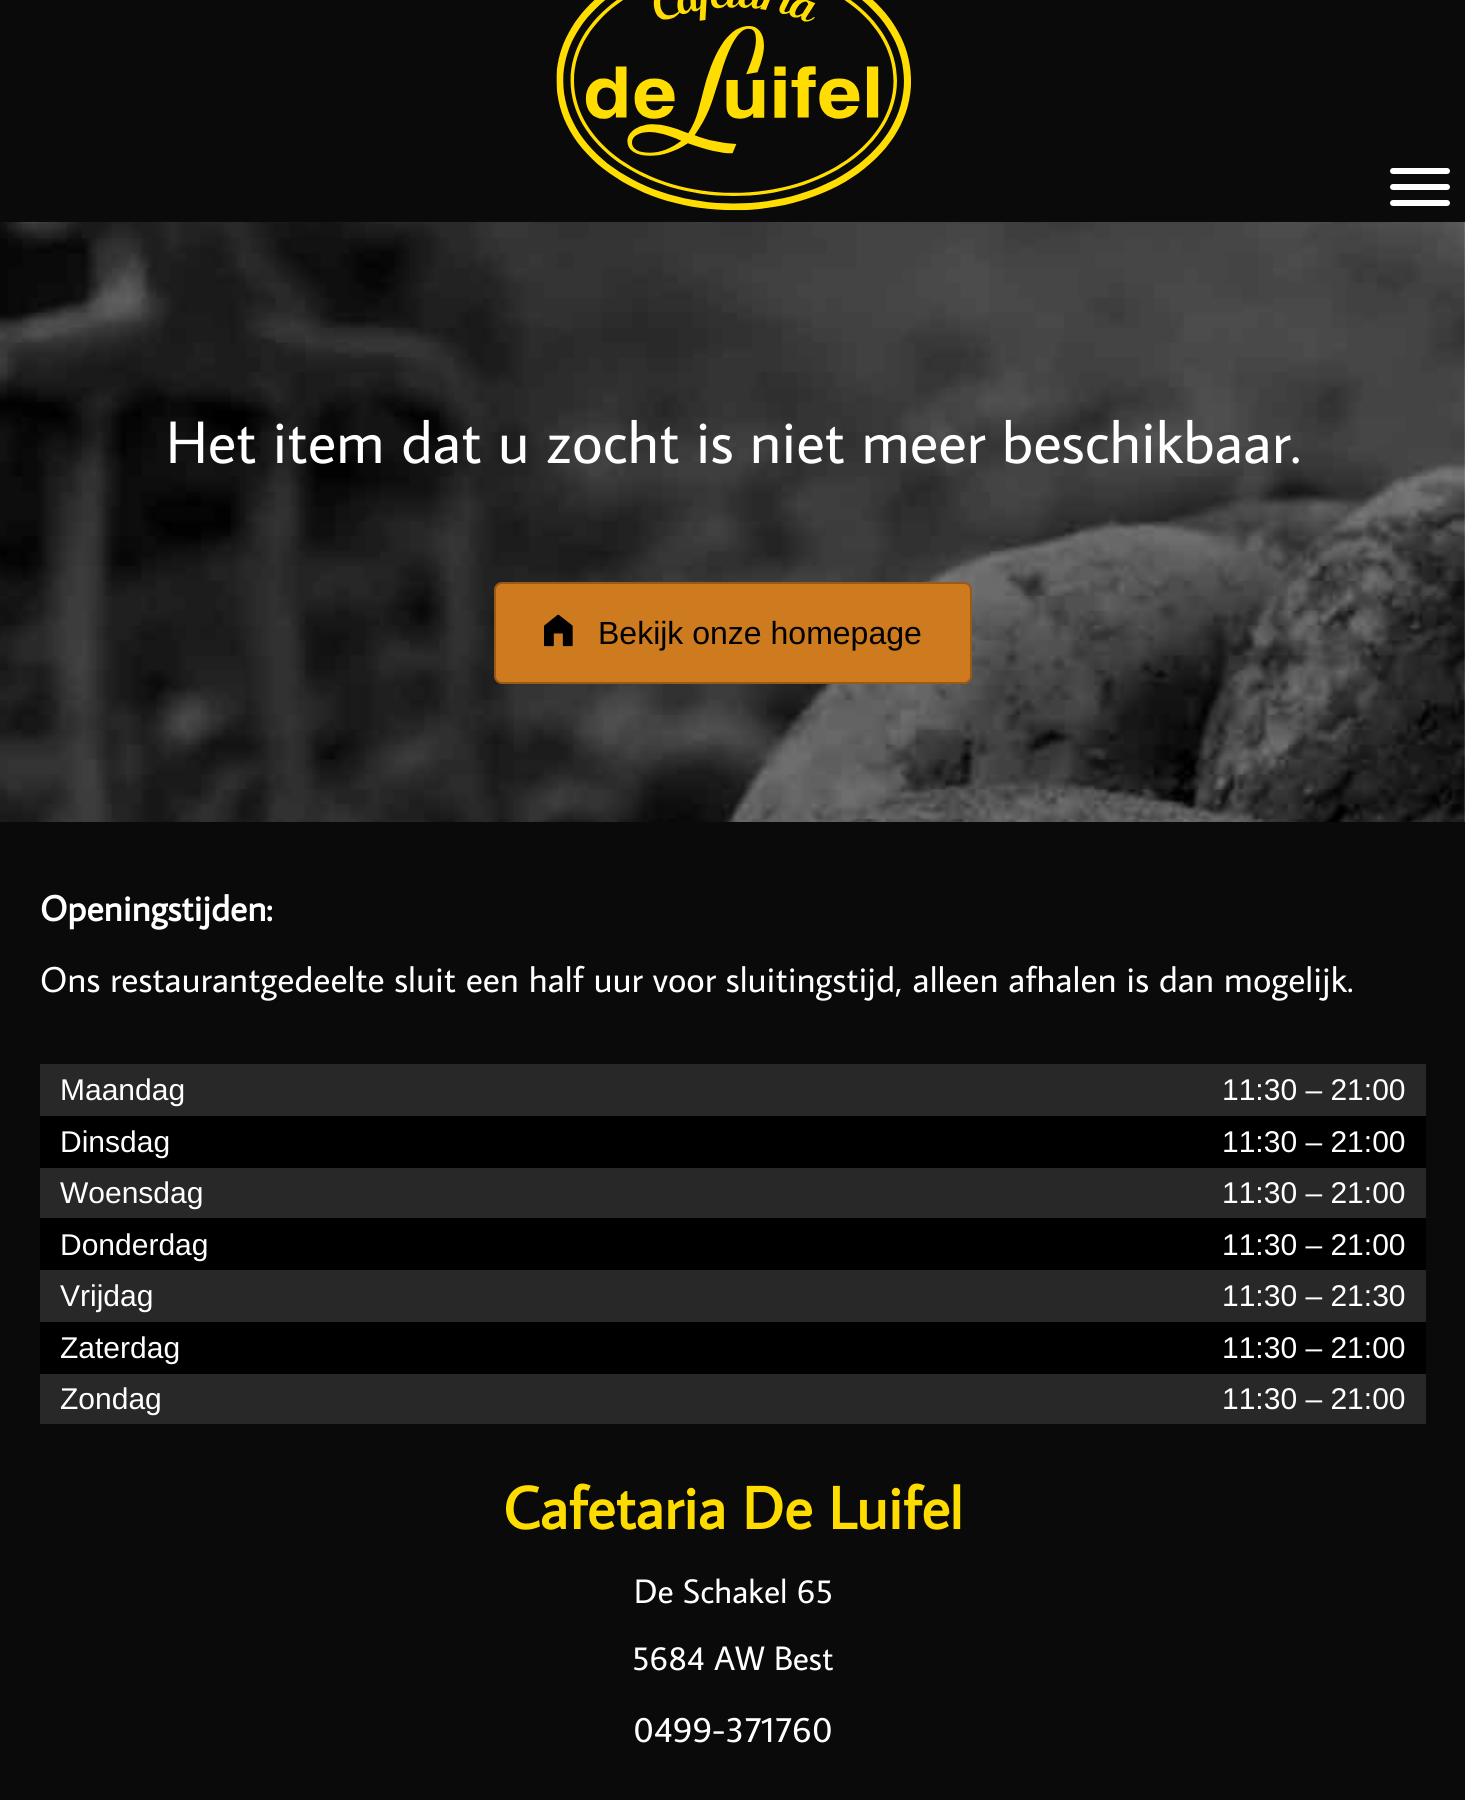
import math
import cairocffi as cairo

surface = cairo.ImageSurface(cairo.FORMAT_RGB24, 1465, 1800)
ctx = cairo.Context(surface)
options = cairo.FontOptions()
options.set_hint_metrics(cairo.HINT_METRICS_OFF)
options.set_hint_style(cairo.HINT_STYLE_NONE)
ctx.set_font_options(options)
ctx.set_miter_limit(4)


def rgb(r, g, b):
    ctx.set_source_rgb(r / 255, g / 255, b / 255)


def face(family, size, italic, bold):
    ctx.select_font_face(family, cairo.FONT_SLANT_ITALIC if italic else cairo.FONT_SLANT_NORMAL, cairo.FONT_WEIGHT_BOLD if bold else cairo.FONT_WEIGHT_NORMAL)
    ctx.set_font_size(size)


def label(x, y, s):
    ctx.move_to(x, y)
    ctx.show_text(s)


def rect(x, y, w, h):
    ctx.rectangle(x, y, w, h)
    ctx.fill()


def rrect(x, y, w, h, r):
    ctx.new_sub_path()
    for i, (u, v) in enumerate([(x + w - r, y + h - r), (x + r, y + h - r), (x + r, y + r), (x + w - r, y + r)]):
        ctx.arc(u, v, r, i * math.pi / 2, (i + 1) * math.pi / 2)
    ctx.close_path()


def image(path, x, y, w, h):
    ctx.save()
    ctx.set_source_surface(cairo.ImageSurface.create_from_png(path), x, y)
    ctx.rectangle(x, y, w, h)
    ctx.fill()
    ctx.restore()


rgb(255, 255, 255)
ctx.paint()
rgb(10, 10, 10)
rect(0, 0, 1465, 222)
image('image0.png', 556, 0, 355, 211)
rgb(255, 255, 255)
rrect(1390, 184, 60, 6, 3)
ctx.fill()
rrect(1390, 168, 60, 6, 3)
ctx.fill()
rrect(1390, 200, 60, 6, 3)
ctx.fill()
image('image1.png', 0, 222, 1465, 600)
face('Average Sans', 60, 0, 0)
label(166, 463, 'Het item dat u zocht is niet meer beschikbaar.')
rgb(206, 122, 31)
rrect(495, 583, 476, 100, 7)
ctx.fill_preserve()
rgb(153, 90, 23)
ctx.stroke()
image('image2.png', 544, 614, 29, 33)
face('Liberation Sans', 32, 0, 0)
rgb(0, 0, 0)
label(598, 644, 'Bekijk onze homepage')
rgb(10, 10, 10)
rect(0, 822, 1465, 978)
face('Average Sans', 36, 0, 1)
rgb(255, 255, 255)
label(40, 921, 'Openingstijden:')
face('Average Sans', 36, 0, 0)
label(40, 992, 'Ons restaurantgedeelte sluit een half uur voor sluitingstijd, alleen afhalen is dan mogelijk.')
rgb(40, 40, 40)
rect(40, 1064, 1386, 52)
face('Liberation Sans', 30, 0, 0)
rgb(255, 255, 255)
label(60, 1100, 'Maandag')
label(1222, 1100, '11:30 – 21:00')
rgb(0, 0, 0)
rect(40, 1116, 1386, 52)
rgb(255, 255, 255)
label(60, 1152, 'Dinsdag')
label(1222, 1152, '11:30 – 21:00')
rgb(40, 40, 40)
rect(40, 1168, 1386, 50)
rgb(255, 255, 255)
label(60, 1203, 'Woensdag')
label(1222, 1203, '11:30 – 21:00')
rgb(0, 0, 0)
rect(40, 1218, 1386, 52)
rgb(255, 255, 255)
label(60, 1255, 'Donderdag')
label(1222, 1255, '11:30 – 21:00')
rgb(40, 40, 40)
rect(40, 1270, 1386, 52)
rgb(255, 255, 255)
label(60, 1306, 'Vrijdag')
label(1222, 1306, '11:30 – 21:30')
rgb(0, 0, 0)
rect(40, 1322, 1386, 52)
rgb(255, 255, 255)
label(60, 1358, 'Zaterdag')
label(1222, 1358, '11:30 – 21:00')
rgb(40, 40, 40)
rect(40, 1374, 1386, 50)
rgb(255, 255, 255)
label(60, 1409, 'Zondag')
label(1222, 1409, '11:30 – 21:00')
face('Average Sans', 60, 0, 1)
rgb(255, 220, 0)
label(503, 1529, 'Cafetaria De Luifel')
face('Average Sans', 34, 0, 0)
rgb(255, 255, 255)
label(634, 1603, 'De Schakel 65')
label(632, 1670, '5684 AW Best')
face('Average Sans', 36, 0, 0)
label(633, 1742, '0499-371760')
surface.write_to_png('render.png')
